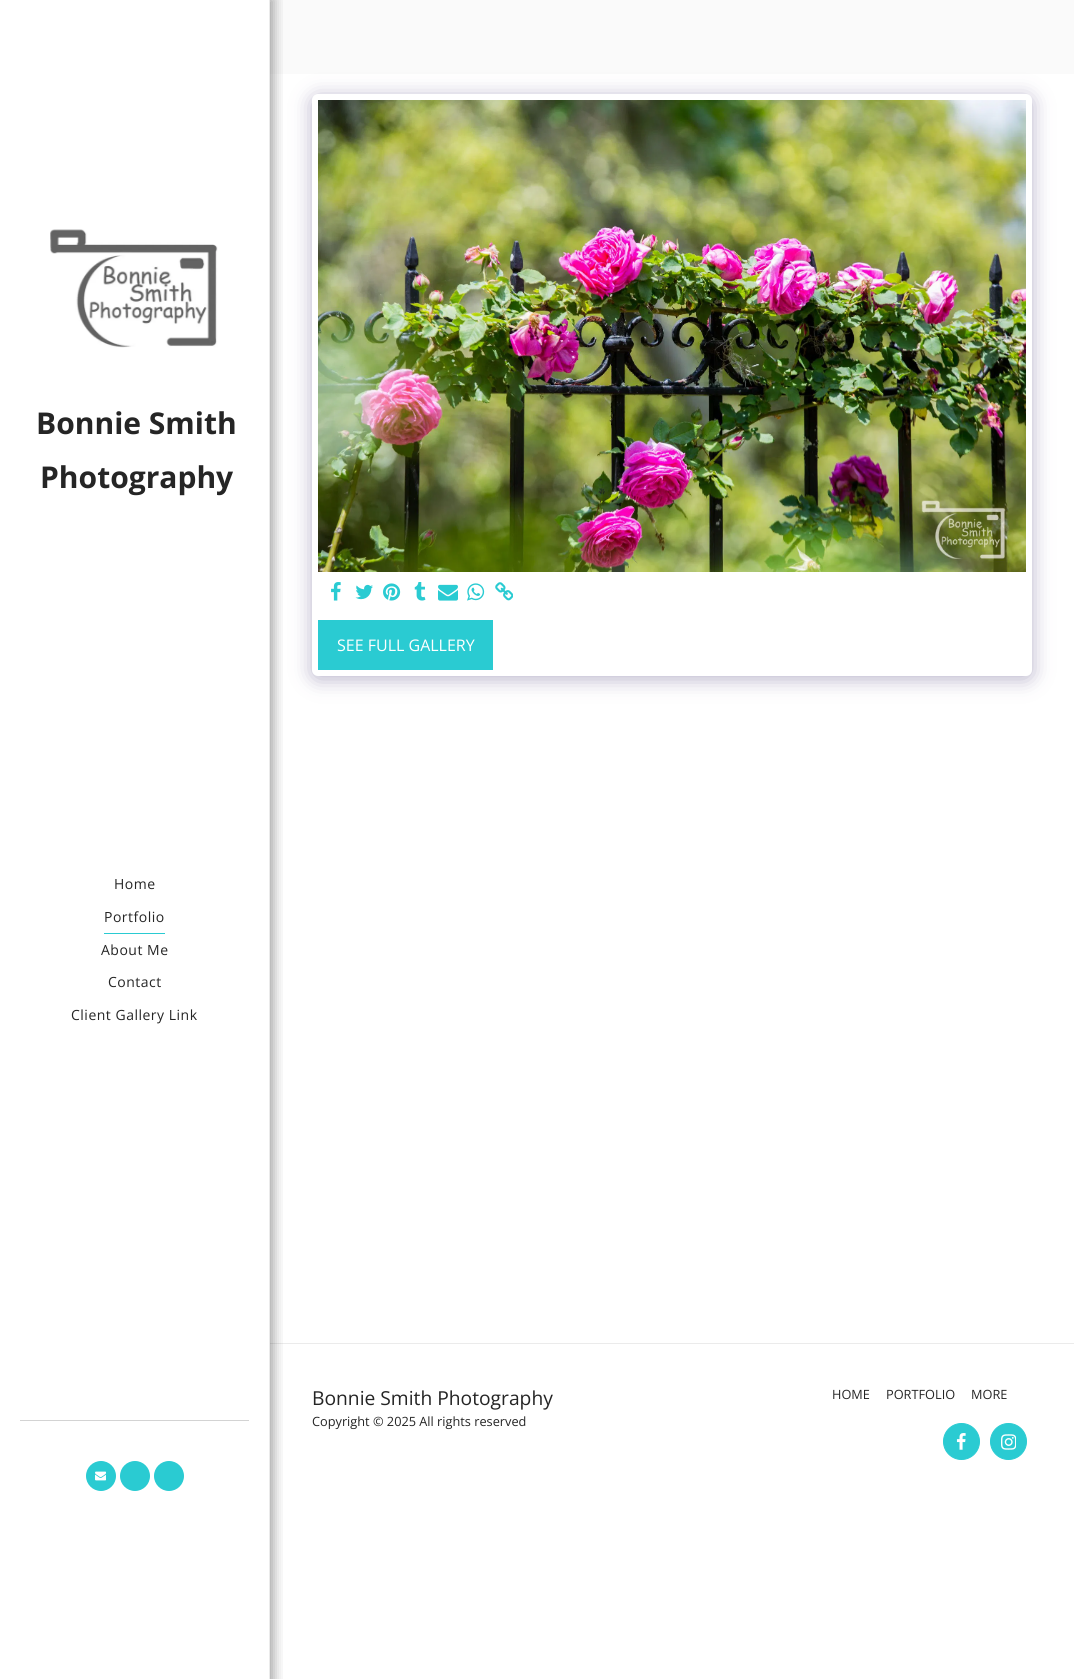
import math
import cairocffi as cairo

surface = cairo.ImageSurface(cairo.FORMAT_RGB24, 1074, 1679)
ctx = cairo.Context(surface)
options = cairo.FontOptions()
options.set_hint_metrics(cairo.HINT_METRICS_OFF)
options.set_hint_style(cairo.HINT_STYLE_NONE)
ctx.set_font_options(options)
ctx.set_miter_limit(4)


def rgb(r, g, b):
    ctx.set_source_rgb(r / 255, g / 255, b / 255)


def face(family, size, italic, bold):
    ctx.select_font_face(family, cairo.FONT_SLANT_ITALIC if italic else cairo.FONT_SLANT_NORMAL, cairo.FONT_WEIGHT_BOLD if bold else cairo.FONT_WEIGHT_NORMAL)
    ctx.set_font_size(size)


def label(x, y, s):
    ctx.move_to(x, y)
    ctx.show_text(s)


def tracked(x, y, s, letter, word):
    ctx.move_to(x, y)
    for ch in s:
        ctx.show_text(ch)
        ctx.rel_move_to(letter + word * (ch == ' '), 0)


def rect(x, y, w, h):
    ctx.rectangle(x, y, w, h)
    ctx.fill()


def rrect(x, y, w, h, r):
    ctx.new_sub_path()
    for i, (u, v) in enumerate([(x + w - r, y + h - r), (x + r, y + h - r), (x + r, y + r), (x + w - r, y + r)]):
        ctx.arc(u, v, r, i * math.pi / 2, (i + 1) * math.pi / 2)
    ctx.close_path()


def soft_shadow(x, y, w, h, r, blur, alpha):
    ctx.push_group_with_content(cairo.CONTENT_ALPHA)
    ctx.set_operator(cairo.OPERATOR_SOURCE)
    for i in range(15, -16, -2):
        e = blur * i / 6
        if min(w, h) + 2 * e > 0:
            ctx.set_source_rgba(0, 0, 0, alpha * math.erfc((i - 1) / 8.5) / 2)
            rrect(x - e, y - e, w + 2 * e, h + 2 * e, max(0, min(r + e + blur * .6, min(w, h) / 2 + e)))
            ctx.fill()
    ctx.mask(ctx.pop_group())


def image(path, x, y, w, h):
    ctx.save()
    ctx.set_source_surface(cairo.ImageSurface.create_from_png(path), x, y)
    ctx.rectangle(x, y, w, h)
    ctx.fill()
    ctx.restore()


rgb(255, 255, 255)
ctx.paint()
rgb(250, 250, 250)
rect(270, 0, 804, 74)
rgb(235, 235, 235)
rect(270, 1343, 804, 1)
ctx.save()
ctx.rectangle(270, 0, 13, 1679)
ctx.clip()
rgb(0, 0, 0)
soft_shadow(0, -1, 274, 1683, 0, 6, 0.35)
ctx.restore()
rect(269, 0, 1, 1679)
image('image0.png', 50, 229, 168, 119)
face('Open Sans', 30, 0, 1)
rgb(37, 37, 37)
label(36, 434, 'Bonnie Smith')
label(40, 488, 'Photography')
face('Open Sans', 14, 0, 0)
tracked(114, 889, 'Home', 0.5, 0)
rgb(42, 203, 210)
rect(104, 933, 61, 1)
rgb(37, 37, 37)
tracked(104, 922, 'Portfolio', 0.5, 0)
tracked(101, 955, 'About Me', 0.5, 0)
tracked(108, 987, 'Contact', 0.5, 0)
tracked(71, 1020, 'Client Gallery Link', 0.5, 0)
rgb(211, 211, 211)
rect(20, 1420, 229, 1)
rgb(42, 203, 210)
ctx.new_path()
ctx.arc(101, 1476, 15, 0, 2 * math.pi)
ctx.fill()
image('image1.png', 95, 1471, 11, 10)
ctx.arc(135, 1476, 15, 0, 2 * math.pi)
ctx.fill()
ctx.arc(169, 1476, 15, 0, 2 * math.pi)
ctx.fill()
rgb(77, 63, 122)
soft_shadow(312, 97, 720, 582, 6, 10, 0.4)
rgb(255, 255, 255)
rrect(312, 94, 720, 582, 6)
ctx.fill()
image('image2.png', 318, 100, 708, 472)
image('image3.png', 331, 582, 10, 19)
image('image4.png', 355, 584, 18, 16)
image('image5.png', 383, 583, 18, 18)
image('image6.png', 414, 582, 12, 19)
image('image7.png', 438, 584, 20, 17)
image('image8.png', 467, 583, 18, 18)
image('image9.png', 495, 582, 18, 19)
rgb(42, 203, 210)
rect(318, 620, 175, 50)
face('Open Sans', 16, 0, 0)
rgb(255, 255, 255)
label(337, 651, 'SEE FULL GALLERY')
face('Open Sans', 19.25, 0, 0)
rgb(37, 37, 37)
label(312, 1405, 'Bonnie Smith Photography')
face('Open Sans', 12.75, 0, 0)
label(312, 1426, 'Copyright © 2025 All rights reserved')
label(832, 1399, 'HOME')
label(886, 1399, 'PORTFOLIO')
label(971, 1399, 'MORE')
rgb(42, 203, 210)
ctx.new_path()
ctx.arc(961.5, 1441.5, 18, 0, 2 * math.pi)
ctx.fill_preserve()
ctx.set_line_width(1)
ctx.stroke()
image('image10.png', 956, 1433, 10, 17)
ctx.arc(1008.5, 1441.5, 18, 0, 2 * math.pi)
ctx.fill_preserve()
ctx.stroke()
image('image11.png', 1001, 1434, 15, 16)
surface.write_to_png('render.png')
